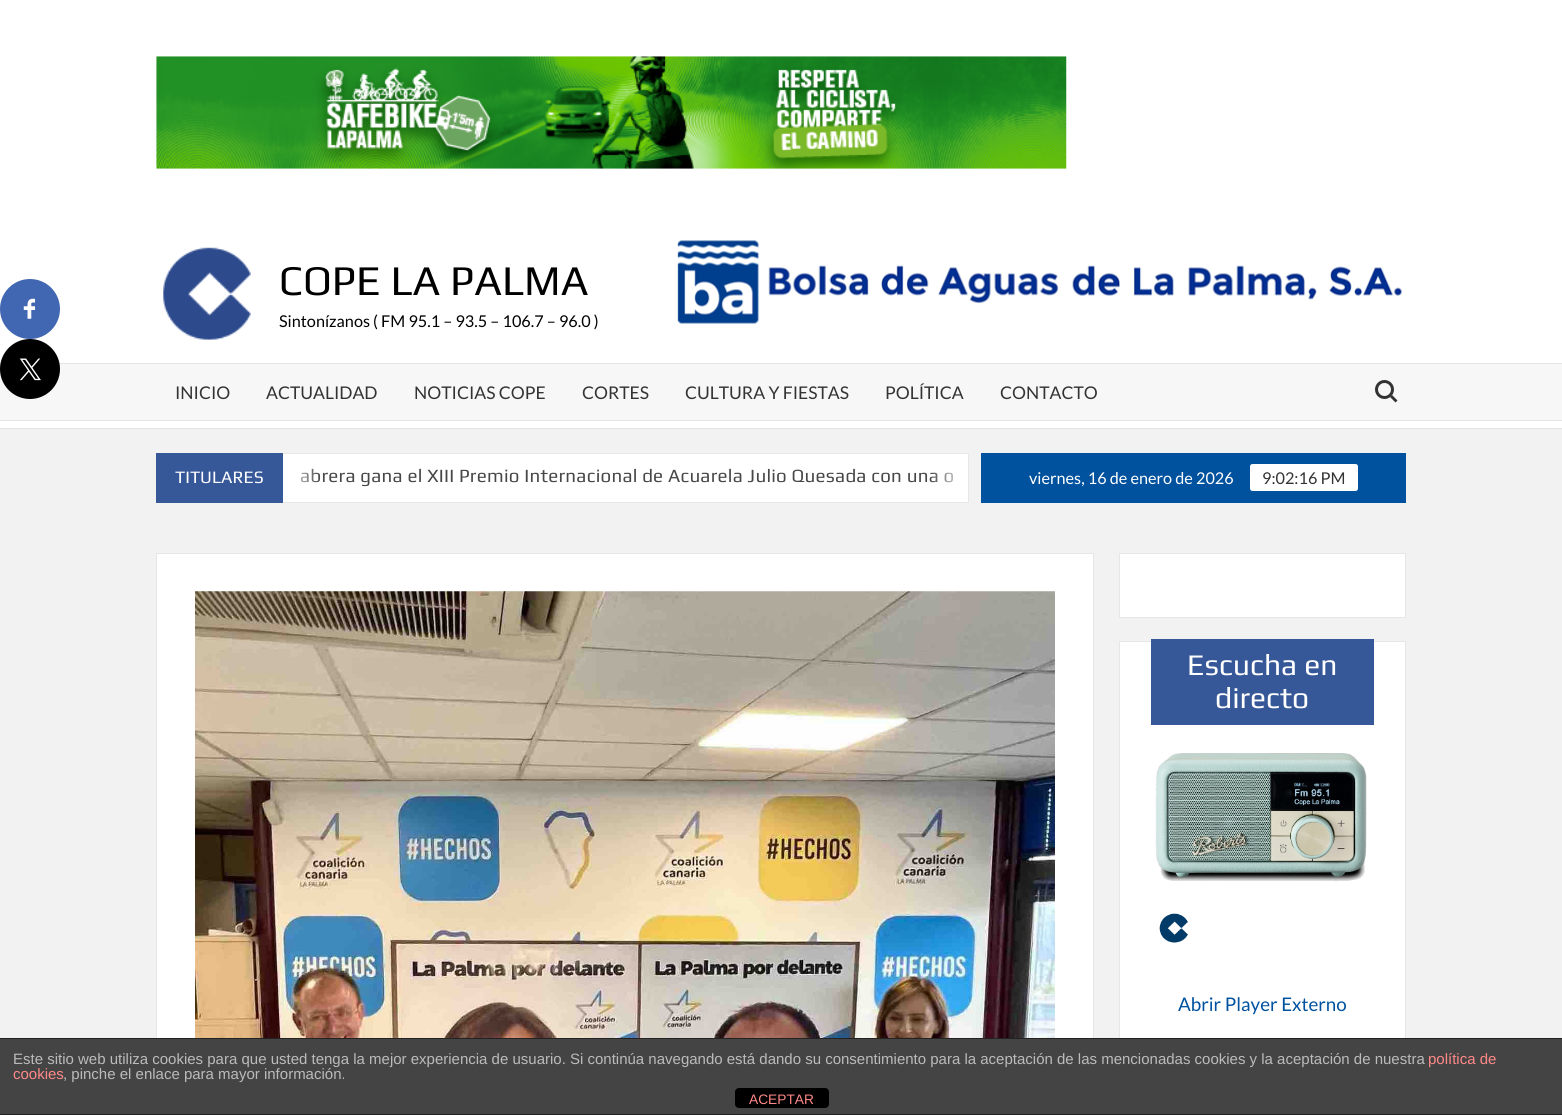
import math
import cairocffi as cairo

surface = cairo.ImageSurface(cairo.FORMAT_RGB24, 1562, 1115)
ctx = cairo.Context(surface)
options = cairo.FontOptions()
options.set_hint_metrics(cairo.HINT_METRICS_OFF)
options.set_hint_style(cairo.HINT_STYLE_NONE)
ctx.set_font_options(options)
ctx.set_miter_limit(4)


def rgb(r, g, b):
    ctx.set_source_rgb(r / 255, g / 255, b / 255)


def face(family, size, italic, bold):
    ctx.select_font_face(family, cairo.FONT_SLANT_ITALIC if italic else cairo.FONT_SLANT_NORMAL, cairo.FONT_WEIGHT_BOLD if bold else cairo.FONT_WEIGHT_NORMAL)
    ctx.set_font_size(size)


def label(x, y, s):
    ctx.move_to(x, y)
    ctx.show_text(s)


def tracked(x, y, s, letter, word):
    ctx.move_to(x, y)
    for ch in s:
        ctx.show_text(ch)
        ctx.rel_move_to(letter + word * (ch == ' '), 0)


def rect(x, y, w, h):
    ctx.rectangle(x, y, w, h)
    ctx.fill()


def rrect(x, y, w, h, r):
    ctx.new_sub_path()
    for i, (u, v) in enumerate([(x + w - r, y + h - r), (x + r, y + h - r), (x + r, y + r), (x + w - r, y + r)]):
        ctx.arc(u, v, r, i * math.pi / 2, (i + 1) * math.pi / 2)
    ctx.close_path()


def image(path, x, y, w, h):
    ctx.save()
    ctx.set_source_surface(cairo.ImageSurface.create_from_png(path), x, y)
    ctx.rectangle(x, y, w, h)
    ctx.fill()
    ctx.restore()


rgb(242, 242, 242)
ctx.paint()
rgb(255, 255, 255)
rect(0, 0, 1562, 363)
rgb(66, 103, 178)
ctx.arc(30, 309, 30, 0, 2 * math.pi)
ctx.fill()
image('image0.png', 23, 298, 13, 21)
rgb(247, 247, 247)
rect(0, 364, 1562, 56)
rgb(228, 228, 228)
rect(0, 363, 1562, 1)
rgb(0, 0, 0)
ctx.arc(30, 369, 30, 0, 2 * math.pi)
ctx.fill()
image('image1.png', 19, 358, 22, 23)
image('image2.png', 156, 56, 911, 113)
image('image3.png', 163, 247, 88, 93)
face('Play', 42.5, 0, 0)
label(279, 295, 'COPE LA PALMA')
face('Lato', 16.25, 0, 0)
label(279, 327, 'Sintonízanos ( FM 95.1 – 93.5 – 106.7 – 96.0 )')
image('image4.png', 677, 240, 726, 84)
rgb(228, 228, 228)
ctx.new_path()
ctx.move_to(0, 428)
ctx.line_to(0, 429)
ctx.line_to(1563, 429)
ctx.line_to(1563, 364)
ctx.line_to(1562, 364)
ctx.line_to(1562, 428)
ctx.close_path()
ctx.fill()
rgb(255, 255, 255)
rect(0, 421, 1562, 7)
rgb(228, 228, 228)
rect(0, 420, 1562, 1)
face('Lato', 17.5, 0, 0)
rgb(51, 51, 51)
label(175, 399, 'INICIO')
label(266, 399, 'ACTUALIDAD')
label(414, 399, 'NOTICIAS COPE')
label(582, 399, 'CORTES')
label(685, 399, 'CULTURA Y FIESTAS')
label(885, 399, 'POLÍTICA')
label(1000, 399, 'CONTACTO')
ctx.new_path()
ctx.arc(1384.5, 389.5, 8, 0, 2 * math.pi)
ctx.set_line_width(3)
ctx.stroke()
ctx.new_path()
ctx.move_to(1392, 395)
ctx.line_to(1397.5, 400.5)
ctx.line_to(1395.5, 402.5)
ctx.line_to(1390, 397)
ctx.close_path()
ctx.fill()
rgb(255, 255, 255)
rect(283, 454, 685, 48)
ctx.rectangle(156.5, 453.5, 812, 49)
rgb(231, 231, 231)
ctx.set_line_width(1)
ctx.stroke()
rgb(54, 88, 153)
rect(156, 453, 127, 50)
face('Play', 17.5, 0, 0)
rgb(255, 255, 255)
label(175, 483, 'TITULARES')
face('Play', 18.75, 0, 0)
rgb(71, 71, 71)
tracked(300, 482, 'abrera gana el XIII Premio Internacional de Acuarela Julio Quesada con una o', 0.25, 0)
gradient = cairo.LinearGradient(283, 478, 320, 478)
gradient.add_color_stop_rgba(0, 1, 1, 1, 1)
gradient.add_color_stop_rgba(1, 1, 1, 1, 0)
ctx.set_source(gradient)
rect(300, 468, 19, 15)
gradient = cairo.LinearGradient(930, 478, 968, 478)
gradient.add_color_stop_rgba(0, 1, 1, 1, 0)
gradient.add_color_stop_rgba(1, 1, 1, 1, 1)
ctx.set_source(gradient)
rect(931, 472, 22, 11)
rgb(0, 82, 159)
rect(981, 453, 425, 50)
face('Lato', 16.25, 0, 0)
rgb(255, 255, 255)
label(1029, 484, 'viernes, 16 de enero de 2026')
rrect(1250, 464, 108, 27, 2.5)
ctx.fill()
rgb(51, 51, 51)
label(1262, 484, '9:02:16 PM')
rgb(255, 255, 255)
rect(157, 554, 936, 484)
ctx.rectangle(156.5, 553.5, 937, 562)
rgb(230, 230, 230)
ctx.stroke()
image('image5.png', 195, 591, 860, 447)
rgb(255, 255, 255)
ctx.rectangle(1119.5, 553.5, 286, 64)
ctx.fill_preserve()
rgb(230, 230, 230)
ctx.stroke()
rgb(255, 255, 255)
rect(1120, 642, 285, 396)
ctx.rectangle(1119.5, 641.5, 286, 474)
rgb(230, 230, 230)
ctx.stroke()
rgb(54, 88, 153)
rect(1151, 639, 223, 86)
face('Play', 30, 0, 0)
rgb(255, 255, 255)
label(1187, 675, 'Escucha en')
label(1215, 708, 'directo')
image('image6.png', 1155, 753, 212, 129)
image('image7.png', 1159, 913, 29, 30)
face('Lato', 18.75, 0, 0)
rgb(0, 82, 159)
label(1178, 1011, 'Abrir Player Externo')
rgb(68, 68, 68)
rect(0, 1039, 1562, 75)
rgb(34, 34, 34)
rect(0, 1038, 1562, 1)
rect(0, 1114, 1562, 1)
face('Liberation Sans', 15, 0, 0)
rgb(187, 187, 187)
label(13, 1064, 'Este sitio web utiliza cookies para que usted tenga la mejor experiencia de usuario. Si continúa navegando está dando su consentimiento para la aceptación de las mencionadas cookies y la aceptación de nuestra')
rgb(255, 136, 136)
label(1428, 1064, 'política de')
label(13, 1079, 'cookies')
rgb(187, 187, 187)
label(63, 1079, ', pinche el enlace para mayor información.')
rgb(0, 0, 0)
rrect(735, 1088, 94, 20, 4)
ctx.fill()
face('Liberation Sans', 13.75, 0, 0)
rgb(255, 136, 136)
label(749, 1104, 'ACEPTAR')
surface.write_to_png('render.png')
